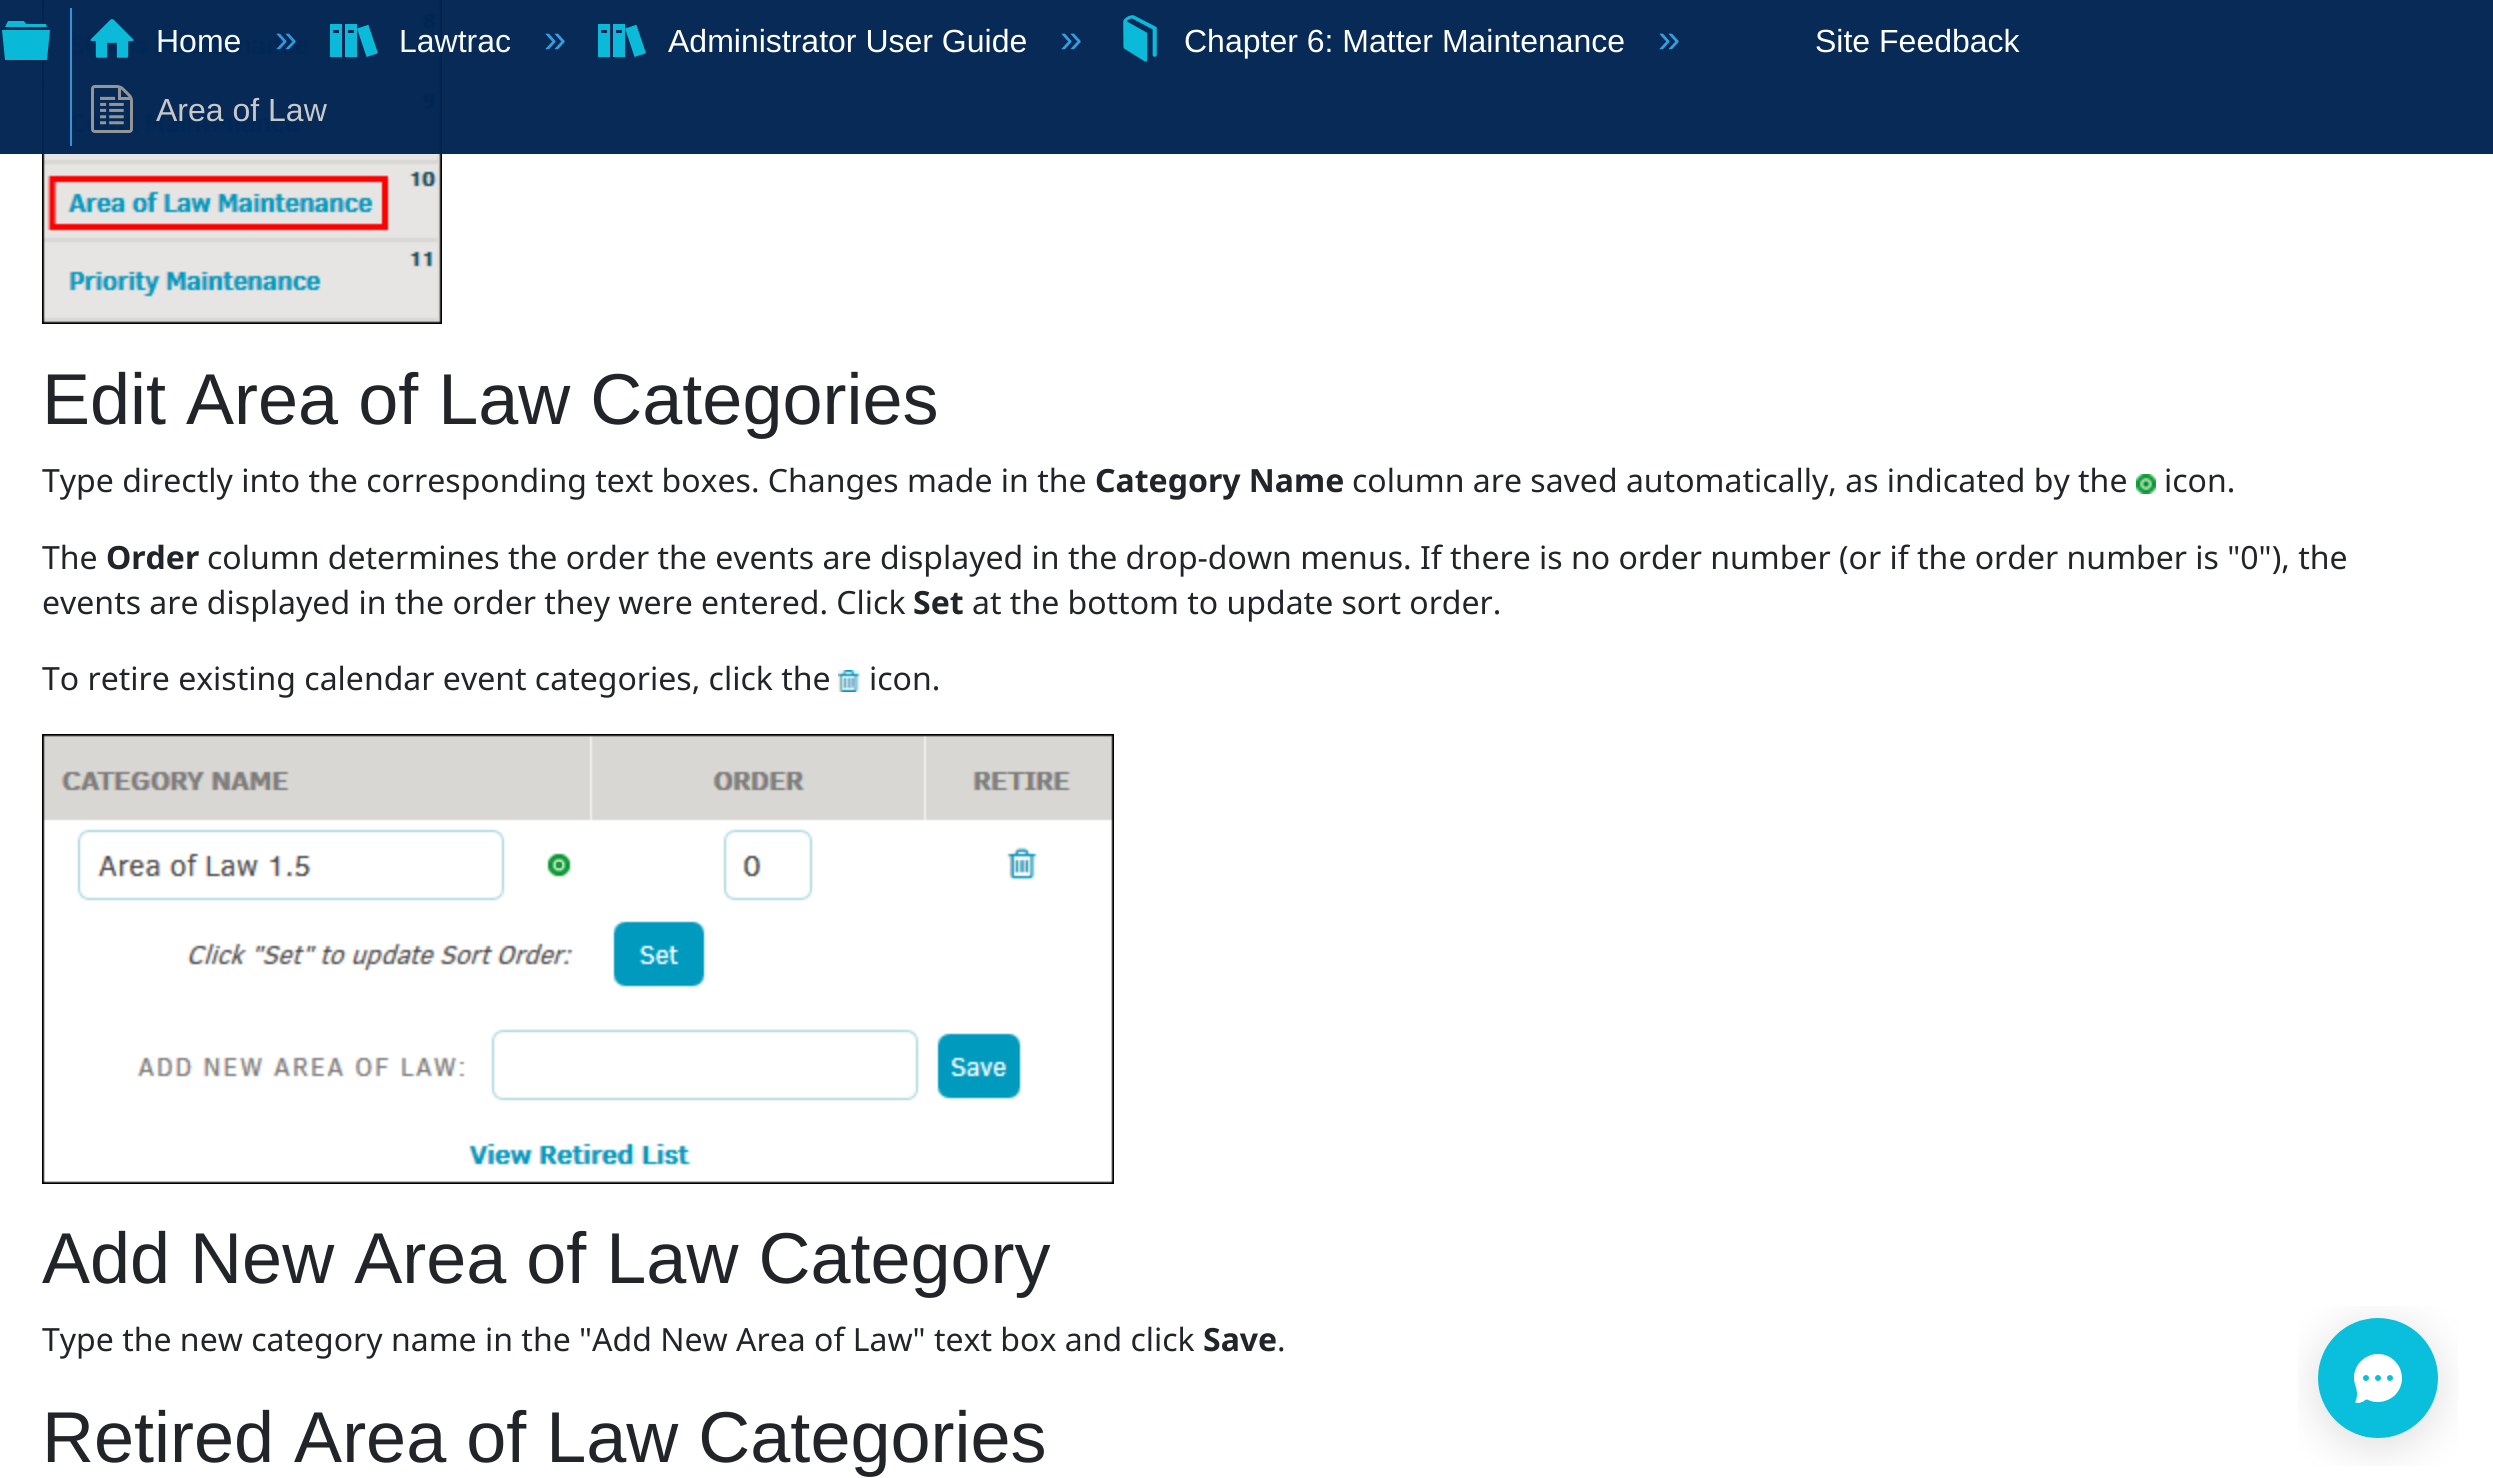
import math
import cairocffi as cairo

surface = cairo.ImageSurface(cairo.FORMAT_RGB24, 2493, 1478)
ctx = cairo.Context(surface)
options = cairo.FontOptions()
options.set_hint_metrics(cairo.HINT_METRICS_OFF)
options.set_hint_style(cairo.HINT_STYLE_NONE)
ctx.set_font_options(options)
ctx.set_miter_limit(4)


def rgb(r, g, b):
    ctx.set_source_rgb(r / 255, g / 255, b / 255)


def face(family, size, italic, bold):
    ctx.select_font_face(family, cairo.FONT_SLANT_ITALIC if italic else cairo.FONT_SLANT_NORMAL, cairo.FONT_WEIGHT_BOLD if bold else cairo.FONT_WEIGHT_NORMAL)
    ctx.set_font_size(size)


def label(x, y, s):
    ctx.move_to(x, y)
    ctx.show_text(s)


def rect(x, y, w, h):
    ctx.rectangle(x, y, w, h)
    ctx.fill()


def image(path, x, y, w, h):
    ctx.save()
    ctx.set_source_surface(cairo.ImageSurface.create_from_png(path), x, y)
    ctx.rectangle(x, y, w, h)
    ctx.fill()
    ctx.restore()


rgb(255, 255, 255)
ctx.paint()
image('image5.png', 42, 0, 400, 324)
ctx.set_source_rgba(0, 0.141, 0.325, 0.97)
rect(0, 0, 2493, 154)
ctx.set_source_rgba(0.039, 0.749, 0.863, 0.97)
ctx.new_path()
ctx.move_to(2, 30)
ctx.line_to(50, 30)
ctx.line_to(47, 60)
ctx.line_to(5, 60)
ctx.close_path()
ctx.move_to(46, 24)
ctx.line_to(47, 27)
ctx.line_to(5, 27)
ctx.line_to(8, 21)
ctx.line_to(24, 21)
ctx.line_to(26, 24)
ctx.close_path()
ctx.fill()
ctx.set_source_rgba(0.204, 0.596, 0.859, 0.97)
rect(70, 8, 2, 138)
image('image0.png', 90, 19, 44, 39)
face('Liberation Sans', 32, 0, 0)
rgb(247, 249, 250)
label(156, 52, 'Home')
face('Liberation Sans', 40, 0, 0)
rgb(51, 149, 215)
label(275, 52, '»')
image('image1.png', 330, 24, 48, 33)
face('Liberation Sans', 32, 0, 0)
rgb(247, 249, 250)
label(399, 52, 'Lawtrac')
face('Liberation Sans', 40, 0, 0)
rgb(58, 155, 220)
label(544, 52, '»')
image('image2.png', 598, 24, 48, 33)
face('Liberation Sans', 32, 0, 0)
rgb(255, 255, 255)
label(668, 52, 'Administrator User Guide')
face('Liberation Sans', 40, 0, 0)
rgb(58, 155, 220)
label(1060, 52, '»')
image('image3.png', 1123, 15, 34, 47)
face('Liberation Sans', 32, 0, 0)
rgb(255, 255, 255)
label(1184, 52, 'Chapter 6: Matter Maintenance')
face('Liberation Sans', 40, 0, 0)
rgb(58, 155, 220)
label(1658, 52, '»')
image('image4.png', 91, 85, 42, 48)
face('Liberation Sans', 32, 0, 0)
rgb(199, 200, 201)
label(156, 121, 'Area of Law')
rgb(255, 255, 255)
label(1815, 52, 'Site Feedback')
face('Liberation Sans', 72, 0, 0)
rgb(33, 37, 41)
label(42, 424, 'Edit Area of Law Categories')
face('Noto Sans', 32, 0, 0)
label(42, 492, 'Type directly into the corresponding text boxes. Changes made in the')
face('Noto Sans', 32, 0, 1)
label(1095, 492, 'Category Name')
face('Noto Sans', 32, 0, 0)
label(1352, 492, 'column are saved automatically, as indicated by the')
image('image6.png', 2136, 474, 20, 20)
label(2164, 492, 'icon.')
label(42, 569, 'The')
face('Noto Sans', 32, 0, 1)
label(106, 569, 'Order')
face('Noto Sans', 32, 0, 0)
label(207, 569, 'column determines the order the events are displayed in the drop-down menus. If there is no order number (or if the order number is "0"), the')
label(42, 614, 'events are displayed in the order they were entered. Click')
face('Noto Sans', 32, 0, 1)
label(913, 614, 'Set')
face('Noto Sans', 32, 0, 0)
label(972, 614, 'at the bottom to update sort order.')
label(42, 690, 'To retire existing calendar event categories, click the')
image('image7.png', 838, 670, 22, 22)
label(869, 690, 'icon.')
image('image8.png', 42, 734, 1072, 450)
face('Liberation Sans', 72, 0, 0)
label(42, 1283, 'Add New Area of Law Category')
face('Noto Sans', 32, 0, 0)
label(42, 1351, 'Type the new category name in the "Add New Area of Law" text box and click')
face('Noto Sans', 32, 0, 1)
label(1203, 1351, 'Save')
face('Noto Sans', 32, 0, 0)
label(1277, 1351, '.')
face('Liberation Sans', 72, 0, 0)
label(42, 1462, 'Retired Area of Law Categories')
image('image9.png', 2298, 1306, 160, 160)
surface.write_to_png('render.png')
